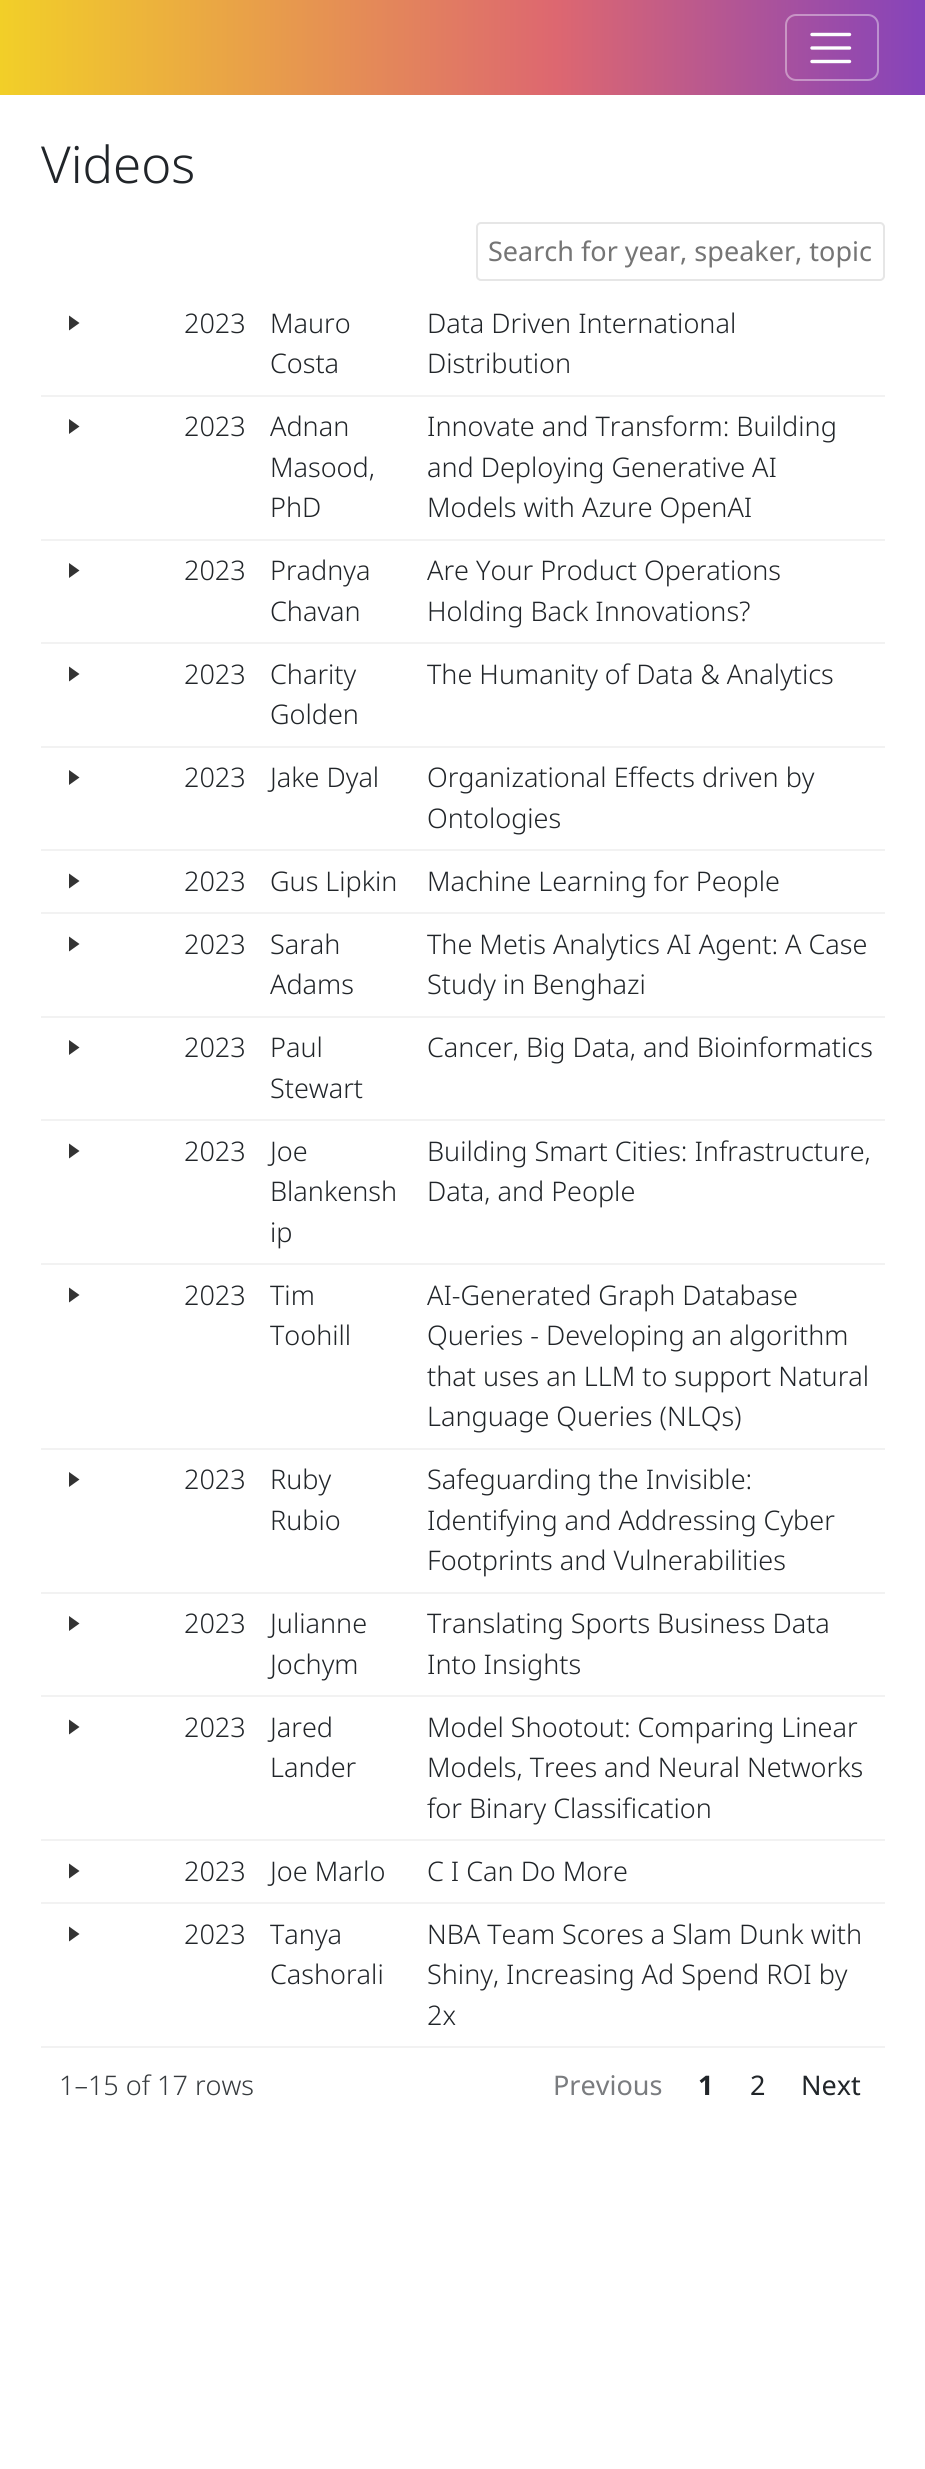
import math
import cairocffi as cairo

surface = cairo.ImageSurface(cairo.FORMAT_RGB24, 925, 2469)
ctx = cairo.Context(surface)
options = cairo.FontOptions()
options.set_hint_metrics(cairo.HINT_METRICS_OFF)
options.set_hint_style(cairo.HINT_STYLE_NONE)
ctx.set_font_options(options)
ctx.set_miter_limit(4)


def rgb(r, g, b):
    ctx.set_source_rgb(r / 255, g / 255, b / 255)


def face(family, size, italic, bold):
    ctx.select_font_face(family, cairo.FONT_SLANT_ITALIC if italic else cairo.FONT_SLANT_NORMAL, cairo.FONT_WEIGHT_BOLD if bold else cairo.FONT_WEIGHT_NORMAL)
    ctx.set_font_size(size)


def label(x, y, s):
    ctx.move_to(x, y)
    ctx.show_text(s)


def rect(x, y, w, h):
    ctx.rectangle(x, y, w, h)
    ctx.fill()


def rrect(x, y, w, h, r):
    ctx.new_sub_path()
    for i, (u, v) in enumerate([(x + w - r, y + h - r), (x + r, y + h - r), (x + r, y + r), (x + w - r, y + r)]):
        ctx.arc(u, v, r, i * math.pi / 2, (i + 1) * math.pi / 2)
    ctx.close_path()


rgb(255, 255, 255)
ctx.paint()
gradient = cairo.LinearGradient(0, 47, 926, 47)
gradient.add_color_stop_rgba(0, 0.949, 0.812, 0.157, 1)
gradient.add_color_stop_rgba(0.6, 0.867, 0.404, 0.439, 1)
gradient.add_color_stop_rgba(1, 0.522, 0.263, 0.733, 1)
ctx.set_source(gradient)
rect(0, 0, 925, 95)
rrect(786, 15, 92, 65, 10)
ctx.set_source_rgba(0.988, 0.996, 0.996, 0.4)
ctx.stroke()
ctx.new_path()
ctx.move_to(812, 34.5)
ctx.line_to(849.5, 34.5)
ctx.move_to(812, 48)
ctx.line_to(849.5, 48)
ctx.move_to(812, 61.5)
ctx.line_to(849.5, 61.5)
rgb(252, 254, 254)
ctx.set_line_width(3.4)
ctx.set_line_cap(cairo.LINE_CAP_ROUND)
ctx.stroke()
face('Noto Sans Light', 51, 0, 0)
rgb(33, 37, 41)
label(41, 183, 'Videos')
rrect(477, 223, 407, 57, 4)
rgb(230, 230, 230)
ctx.set_line_width(2)
ctx.set_line_cap(cairo.LINE_CAP_BUTT)
ctx.stroke()
face('Noto Sans', 27, 0, 0)
rgb(117, 117, 117)
label(488, 261, 'Search for year, speaker, topic')
rgb(51, 51, 51)
ctx.new_path()
ctx.move_to(69, 330.5)
ctx.line_to(69, 315.5)
ctx.line_to(79.5, 323)
ctx.close_path()
ctx.fill()
face('Noto Sans Light', 27, 0, 0)
rgb(33, 37, 41)
label(184, 333, '2023')
label(270, 333, 'Mauro')
label(270, 373, 'Costa')
label(427, 333, 'Data Driven International')
label(427, 373, 'Distribution')
rgb(242, 242, 242)
rect(41, 395, 844, 2)
rgb(51, 51, 51)
ctx.new_path()
ctx.move_to(69, 434)
ctx.line_to(69, 419)
ctx.line_to(79.5, 426.5)
ctx.close_path()
ctx.fill()
rgb(33, 37, 41)
label(184, 436, '2023')
label(270, 436, 'Adnan')
label(270, 477, 'Masood,')
label(270, 517, 'PhD')
label(427, 436, 'Innovate and Transform: Building')
label(427, 477, 'and Deploying Generative AI')
label(427, 517, 'Models with Azure OpenAI')
rgb(242, 242, 242)
rect(41, 539, 844, 2)
rgb(51, 51, 51)
ctx.new_path()
ctx.move_to(69, 578)
ctx.line_to(69, 563)
ctx.line_to(79.5, 570.5)
ctx.close_path()
ctx.fill()
rgb(33, 37, 41)
label(184, 580, '2023')
label(270, 580, 'Pradnya')
label(270, 621, 'Chavan')
label(427, 580, 'Are Your Product Operations')
label(427, 621, 'Holding Back Innovations?')
rgb(242, 242, 242)
rect(41, 642, 844, 2)
rgb(51, 51, 51)
ctx.new_path()
ctx.move_to(69, 681.5)
ctx.line_to(69, 666.5)
ctx.line_to(79.5, 674)
ctx.close_path()
ctx.fill()
rgb(33, 37, 41)
label(184, 684, '2023')
label(270, 684, 'Charity')
label(270, 724, 'Golden')
label(427, 684, 'The Humanity of Data & Analytics')
rgb(242, 242, 242)
rect(41, 746, 844, 2)
rgb(51, 51, 51)
ctx.new_path()
ctx.move_to(69, 785)
ctx.line_to(69, 770)
ctx.line_to(79.5, 777.5)
ctx.close_path()
ctx.fill()
rgb(33, 37, 41)
label(184, 787, '2023')
label(270, 787, 'Jake Dyal')
label(427, 787, 'Organizational Effects driven by')
label(427, 828, 'Ontologies')
rgb(242, 242, 242)
rect(41, 849, 844, 2)
rgb(51, 51, 51)
ctx.new_path()
ctx.move_to(69, 888.5)
ctx.line_to(69, 873.5)
ctx.line_to(79.5, 881)
ctx.close_path()
ctx.fill()
rgb(33, 37, 41)
label(184, 891, '2023')
label(270, 891, 'Gus Lipkin')
label(427, 891, 'Machine Learning for People')
rgb(242, 242, 242)
rect(41, 912, 844, 2)
rgb(51, 51, 51)
ctx.new_path()
ctx.move_to(69, 951.5)
ctx.line_to(69, 936.5)
ctx.line_to(79.5, 944)
ctx.close_path()
ctx.fill()
rgb(33, 37, 41)
label(184, 954, '2023')
label(270, 954, 'Sarah')
label(270, 994, 'Adams')
label(427, 954, 'The Metis Analytics AI Agent: A Case')
label(427, 994, 'Study in Benghazi')
rgb(242, 242, 242)
rect(41, 1016, 844, 2)
rgb(51, 51, 51)
ctx.new_path()
ctx.move_to(69, 1055)
ctx.line_to(69, 1040)
ctx.line_to(79.5, 1047.5)
ctx.close_path()
ctx.fill()
rgb(33, 37, 41)
label(184, 1057, '2023')
label(270, 1057, 'Paul')
label(270, 1098, 'Stewart')
label(427, 1057, 'Cancer, Big Data, and Bioinformatics')
rgb(242, 242, 242)
rect(41, 1119, 844, 2)
rgb(51, 51, 51)
ctx.new_path()
ctx.move_to(69, 1158.5)
ctx.line_to(69, 1143.5)
ctx.line_to(79.5, 1151)
ctx.close_path()
ctx.fill()
rgb(33, 37, 41)
label(184, 1161, '2023')
label(270, 1161, 'Joe')
label(270, 1201, 'Blankensh')
label(270, 1242, 'ip')
label(427, 1161, 'Building Smart Cities: Infrastructure,')
label(427, 1201, 'Data, and People')
rgb(242, 242, 242)
rect(41, 1263, 844, 2)
rgb(51, 51, 51)
ctx.new_path()
ctx.move_to(69, 1302.5)
ctx.line_to(69, 1287.5)
ctx.line_to(79.5, 1295)
ctx.close_path()
ctx.fill()
rgb(33, 37, 41)
label(184, 1305, '2023')
label(270, 1305, 'Tim')
label(270, 1345, 'Toohill')
label(427, 1305, 'AI-Generated Graph Database')
label(427, 1345, 'Queries - Developing an algorithm')
label(427, 1386, 'that uses an LLM to support Natural')
label(427, 1426, 'Language Queries (NLQs)')
rgb(242, 242, 242)
rect(41, 1448, 844, 2)
rgb(51, 51, 51)
ctx.new_path()
ctx.move_to(69, 1487)
ctx.line_to(69, 1472)
ctx.line_to(79.5, 1479.5)
ctx.close_path()
ctx.fill()
rgb(33, 37, 41)
label(184, 1489, '2023')
label(270, 1489, 'Ruby')
label(270, 1530, 'Rubio')
label(427, 1489, 'Safeguarding the Invisible:')
label(427, 1530, 'Identifying and Addressing Cyber')
label(427, 1570, 'Footprints and Vulnerabilities')
rgb(242, 242, 242)
rect(41, 1592, 844, 2)
rgb(51, 51, 51)
ctx.new_path()
ctx.move_to(69, 1631)
ctx.line_to(69, 1616)
ctx.line_to(79.5, 1623.5)
ctx.close_path()
ctx.fill()
rgb(33, 37, 41)
label(184, 1633, '2023')
label(270, 1633, 'Julianne')
label(270, 1674, 'Jochym')
label(427, 1633, 'Translating Sports Business Data')
label(427, 1674, 'Into Insights')
rgb(242, 242, 242)
rect(41, 1695, 844, 2)
rgb(51, 51, 51)
ctx.new_path()
ctx.move_to(69, 1734.5)
ctx.line_to(69, 1719.5)
ctx.line_to(79.5, 1727)
ctx.close_path()
ctx.fill()
rgb(33, 37, 41)
label(184, 1737, '2023')
label(270, 1737, 'Jared')
label(270, 1777, 'Lander')
label(427, 1737, 'Model Shootout: Comparing Linear')
label(427, 1777, 'Models, Trees and Neural Networks')
label(427, 1818, 'for Binary Classification')
rgb(242, 242, 242)
rect(41, 1839, 844, 2)
rgb(51, 51, 51)
ctx.new_path()
ctx.move_to(69, 1878.5)
ctx.line_to(69, 1863.5)
ctx.line_to(79.5, 1871)
ctx.close_path()
ctx.fill()
rgb(33, 37, 41)
label(184, 1881, '2023')
label(270, 1881, 'Joe Marlo')
label(427, 1881, 'C I Can Do More')
rgb(242, 242, 242)
rect(41, 1902, 844, 2)
rgb(51, 51, 51)
ctx.new_path()
ctx.move_to(69, 1941.5)
ctx.line_to(69, 1926.5)
ctx.line_to(79.5, 1934)
ctx.close_path()
ctx.fill()
rgb(33, 37, 41)
label(184, 1944, '2023')
label(270, 1944, 'Tanya')
label(270, 1984, 'Cashorali')
label(427, 1944, 'NBA Team Scores a Slam Dunk with')
label(427, 1984, 'Shiny, Increasing Ad Spend ROI by')
label(427, 2025, '2x')
rgb(242, 242, 242)
rect(41, 2046, 844, 2)
rgb(55, 59, 62)
label(59, 2095, '1–15 of 17 rows')
face('Noto Sans', 27, 0, 0)
rgb(122, 124, 127)
label(553, 2095, 'Previous')
face('Noto Sans', 27, 0, 1)
rgb(33, 37, 41)
label(698, 2095, '1')
face('Noto Sans', 27, 0, 0)
label(750, 2095, '2')
label(801, 2095, 'Next')
surface.write_to_png('render.png')
